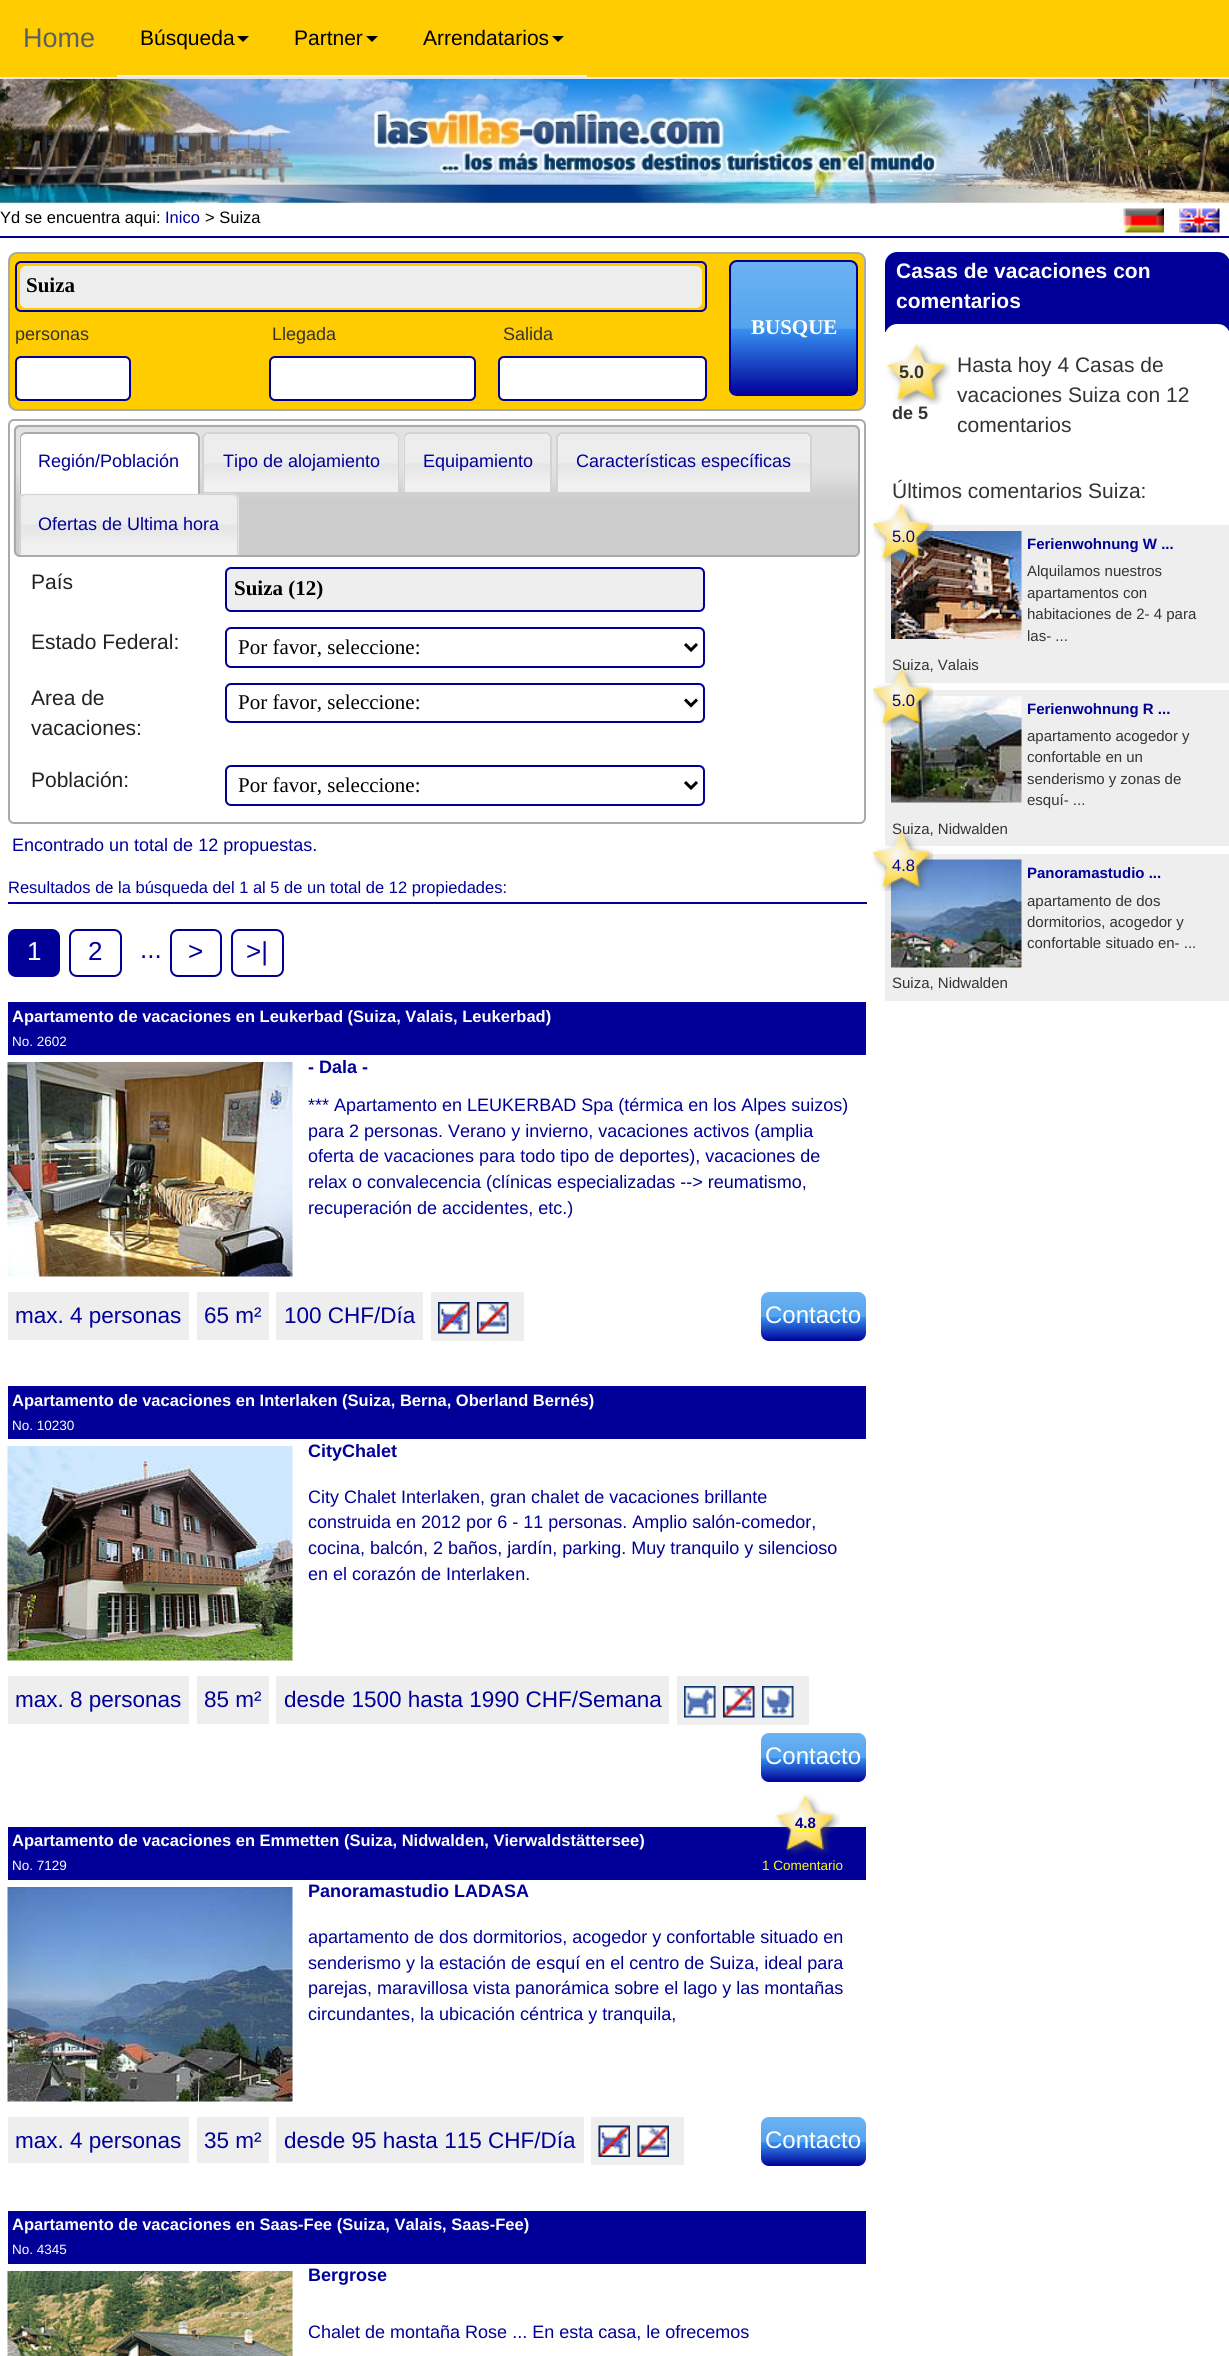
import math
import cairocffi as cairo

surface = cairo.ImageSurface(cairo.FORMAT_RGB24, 1229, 2356)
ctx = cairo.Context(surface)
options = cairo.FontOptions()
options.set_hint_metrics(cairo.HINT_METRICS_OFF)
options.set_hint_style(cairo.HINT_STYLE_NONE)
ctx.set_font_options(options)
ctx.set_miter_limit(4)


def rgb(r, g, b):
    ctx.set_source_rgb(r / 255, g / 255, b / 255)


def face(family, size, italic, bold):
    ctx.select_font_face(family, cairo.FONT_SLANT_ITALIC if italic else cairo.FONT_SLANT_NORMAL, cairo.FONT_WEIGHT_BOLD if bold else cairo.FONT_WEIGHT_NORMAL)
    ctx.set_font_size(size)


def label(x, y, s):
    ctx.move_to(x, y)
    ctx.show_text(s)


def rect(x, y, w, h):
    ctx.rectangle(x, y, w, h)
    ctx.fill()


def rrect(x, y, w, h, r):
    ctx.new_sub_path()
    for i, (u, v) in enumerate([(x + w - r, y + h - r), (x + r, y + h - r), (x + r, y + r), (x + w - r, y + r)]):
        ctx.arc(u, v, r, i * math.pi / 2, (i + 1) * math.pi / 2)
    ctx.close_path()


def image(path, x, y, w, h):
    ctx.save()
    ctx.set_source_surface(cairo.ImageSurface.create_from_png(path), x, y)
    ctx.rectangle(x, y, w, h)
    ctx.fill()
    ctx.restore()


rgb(255, 255, 255)
ctx.paint()
rgb(255, 204, 0)
rect(0, 0, 1229, 77)
rgb(231, 231, 231)
rect(0, 77, 1229, 2)
face('Liberation Sans', 27, 0, 0)
rgb(94, 94, 94)
label(23, 47, 'Home')
rgb(238, 238, 238)
rect(117, 75, 470, 2)
face('Liberation Sans', 21, 0, 0)
rgb(0, 0, 0)
label(140, 45, 'Búsqueda')
ctx.new_path()
ctx.move_to(237, 36)
ctx.line_to(249, 36)
ctx.line_to(243, 42)
ctx.close_path()
ctx.fill()
label(294, 45, 'Partner')
ctx.new_path()
ctx.move_to(366, 36)
ctx.line_to(378, 36)
ctx.line_to(372, 42)
ctx.close_path()
ctx.fill()
label(423, 45, 'Arrendatarios')
ctx.new_path()
ctx.move_to(552, 36)
ctx.line_to(564, 36)
ctx.line_to(558, 42)
ctx.close_path()
ctx.fill()
image('image0.png', 0, 79, 1229, 125)
rgb(0, 0, 153)
rect(0, 236, 1229, 2)
face('Liberation Sans', 16.5, 0, 0)
rgb(0, 0, 0)
label(0, 223, 'Yd se encuentra aqui:')
rgb(0, 0, 153)
label(165, 223, 'Inico')
rgb(0, 0, 0)
label(205, 223, '> Suiza')
image('image1.png', 1123, 208, 41, 25)
image('image2.png', 1179, 208, 41, 25)
rgb(255, 204, 0)
rrect(9, 253, 856, 157, 8)
ctx.fill_preserve()
rgb(170, 170, 170)
ctx.stroke()
rrect(16, 262, 690, 49, 5)
rgb(0, 0, 153)
ctx.stroke()
rgb(238, 238, 238)
rrect(20, 266, 682, 42, 6)
ctx.fill()
face('Liberation Serif', 21, 0, 1)
rgb(0, 0, 0)
label(26, 292, 'Suiza')
face('Liberation Sans', 18, 0, 0)
rgb(51, 51, 51)
label(15, 340, 'personas')
rgb(255, 255, 255)
rrect(16, 357, 114, 43, 5)
ctx.fill_preserve()
rgb(0, 0, 153)
ctx.stroke()
rgb(51, 51, 51)
label(272, 340, 'Llegada')
rgb(255, 255, 255)
rrect(270, 357, 205, 43, 5)
ctx.fill_preserve()
rgb(0, 0, 153)
ctx.stroke()
rgb(51, 51, 51)
label(503, 340, 'Salida')
rgb(255, 255, 255)
rrect(499, 357, 207, 43, 5)
ctx.fill_preserve()
rgb(0, 0, 153)
ctx.stroke()
ctx.save()
rrect(729, 260, 129, 136, 8)
ctx.clip()
gradient = cairo.LinearGradient(794, 261, 794, 395)
gradient.add_color_stop_rgba(0, 0.427, 0.702, 0.949, 1)
gradient.add_color_stop_rgba(0.5, 0.329, 0.639, 0.933, 1)
gradient.add_color_stop_rgba(0.51, 0.212, 0.565, 0.941, 1)
gradient.add_color_stop_rgba(1, 0, 0, 0.6, 1)
ctx.set_source(gradient)
rect(729, 261, 129, 134)
ctx.restore()
rrect(730, 261, 127, 134, 7)
ctx.stroke()
face('Liberation Serif', 21, 0, 1)
rgb(255, 255, 255)
label(751, 334, 'BUSQUE')
rrect(9, 420, 856, 403, 5)
rgb(170, 170, 170)
ctx.stroke()
image('image3.png', 13, 424, 847, 132)
rrect(15, 426, 844, 130, 5)
ctx.stroke()
rgb(255, 255, 255)
ctx.new_path()
ctx.move_to(26, 432)
ctx.line_to(194, 432)
ctx.curve_to(197.5, 432, 200, 434.5, 200, 438)
ctx.line_to(200, 494)
ctx.line_to(20, 494)
ctx.line_to(20, 438)
ctx.curve_to(20, 434.5, 22.5, 432, 26, 432)
ctx.close_path()
ctx.fill()
image('image4.png', 19, 432, 6, 61)
rgb(170, 170, 170)
ctx.set_fill_rule(cairo.FILL_RULE_EVEN_ODD)
ctx.new_path()
ctx.move_to(26, 432)
ctx.line_to(194, 432)
ctx.curve_to(197, 432, 200, 435, 200, 438)
ctx.line_to(200, 494)
ctx.line_to(20, 494)
ctx.line_to(20, 438)
ctx.curve_to(20, 435, 22, 432, 26, 432)
ctx.close_path()
ctx.move_to(26, 434)
ctx.line_to(194, 434)
ctx.curve_to(196, 434, 198, 436, 198, 438)
ctx.line_to(198, 494)
ctx.line_to(21, 494)
ctx.line_to(21, 438)
ctx.curve_to(21, 436, 23, 434, 26, 434)
ctx.close_path()
ctx.fill()
face('Liberation Sans', 18, 0, 0)
rgb(0, 0, 153)
label(38, 467, 'Región/Población')
image('image5.png', 202, 432, 197, 60)
rgb(211, 211, 211)
ctx.new_path()
ctx.move_to(208, 432)
ctx.line_to(393, 432)
ctx.curve_to(396, 432, 399, 435, 399, 438)
ctx.line_to(399, 492)
ctx.line_to(202, 492)
ctx.line_to(202, 438)
ctx.curve_to(202, 435, 205, 432, 208, 432)
ctx.close_path()
ctx.move_to(208, 434)
ctx.line_to(393, 434)
ctx.curve_to(395, 434, 398, 436, 398, 438)
ctx.line_to(398, 492)
ctx.line_to(204, 492)
ctx.line_to(204, 438)
ctx.curve_to(204, 436, 206, 434, 208, 434)
ctx.close_path()
ctx.fill()
rgb(0, 0, 153)
label(223, 467, 'Tipo de alojamiento')
image('image6.png', 403, 432, 149, 60)
rgb(211, 211, 211)
ctx.new_path()
ctx.move_to(410, 432)
ctx.line_to(546, 432)
ctx.curve_to(549, 432, 552, 435, 552, 438)
ctx.line_to(552, 492)
ctx.line_to(404, 492)
ctx.line_to(404, 438)
ctx.curve_to(404, 435, 406, 432, 410, 432)
ctx.close_path()
ctx.move_to(410, 434)
ctx.line_to(546, 434)
ctx.curve_to(548, 434, 550, 436, 550, 438)
ctx.line_to(550, 492)
ctx.line_to(405, 492)
ctx.line_to(405, 438)
ctx.curve_to(405, 436, 407, 434, 410, 434)
ctx.close_path()
ctx.fill()
rgb(0, 0, 153)
label(423, 467, 'Equipamiento')
image('image7.png', 556, 432, 255, 60)
rgb(211, 211, 211)
ctx.new_path()
ctx.move_to(562, 432)
ctx.line_to(806, 432)
ctx.curve_to(809, 432, 812, 435, 812, 438)
ctx.line_to(812, 492)
ctx.line_to(556, 492)
ctx.line_to(556, 438)
ctx.curve_to(556, 435, 559, 432, 562, 432)
ctx.close_path()
ctx.move_to(562, 434)
ctx.line_to(806, 434)
ctx.curve_to(808, 434, 810, 436, 810, 438)
ctx.line_to(810, 492)
ctx.line_to(558, 492)
ctx.line_to(558, 438)
ctx.curve_to(558, 436, 560, 434, 562, 434)
ctx.close_path()
ctx.fill()
rgb(0, 0, 153)
label(576, 467, 'Características específicas')
rgb(230, 230, 230)
ctx.new_path()
ctx.move_to(26, 494)
ctx.line_to(233, 494)
ctx.curve_to(236.5, 494, 239, 496.5, 239, 500)
ctx.line_to(239, 555)
ctx.line_to(20, 555)
ctx.line_to(20, 500)
ctx.curve_to(20, 496.5, 22.5, 494, 26, 494)
ctx.close_path()
ctx.fill()
image('image8.png', 19, 493, 219, 62)
rgb(211, 211, 211)
ctx.new_path()
ctx.move_to(26, 494)
ctx.line_to(232, 494)
ctx.curve_to(236, 494, 238, 496, 238, 500)
ctx.line_to(238, 555)
ctx.line_to(20, 555)
ctx.line_to(20, 500)
ctx.curve_to(20, 496, 22, 494, 26, 494)
ctx.close_path()
ctx.move_to(26, 495)
ctx.line_to(232, 495)
ctx.curve_to(235, 495, 237, 497, 237, 500)
ctx.line_to(237, 555)
ctx.line_to(21, 555)
ctx.line_to(21, 500)
ctx.curve_to(21, 497, 23, 495, 26, 495)
ctx.close_path()
ctx.fill()
rgb(0, 0, 153)
label(38, 530, 'Ofertas de Ultima hora')
face('Liberation Sans', 21, 0, 0)
rgb(34, 34, 34)
label(31, 589, 'País')
rgb(238, 238, 238)
rrect(226, 568, 478, 43, 5)
ctx.fill_preserve()
rgb(0, 0, 153)
ctx.stroke()
face('Liberation Serif', 21, 0, 1)
rgb(0, 0, 0)
label(234, 595, 'Suiza (12)')
face('Liberation Sans', 21, 0, 0)
rgb(34, 34, 34)
label(31, 649, 'Estado Federal:')
rrect(226, 628, 478, 39, 5)
rgb(0, 0, 153)
ctx.stroke()
ctx.new_path()
ctx.move_to(685, 644)
ctx.line_to(691, 650)
ctx.line_to(697, 644)
rgb(0, 0, 0)
ctx.set_line_width(3)
ctx.stroke()
face('Liberation Serif', 21, 0, 0)
label(238, 654, 'Por favor, seleccione:')
face('Liberation Sans', 21, 0, 0)
rgb(34, 34, 34)
label(31, 705, 'Area de')
label(31, 735, 'vacaciones:')
rrect(226, 684, 478, 38, 5)
rgb(0, 0, 153)
ctx.set_line_width(2)
ctx.stroke()
ctx.new_path()
ctx.move_to(685, 699.5)
ctx.line_to(691, 705.5)
ctx.line_to(697, 699.5)
rgb(0, 0, 0)
ctx.set_line_width(3)
ctx.stroke()
face('Liberation Serif', 21, 0, 0)
label(238, 709, 'Por favor, seleccione:')
face('Liberation Sans', 21, 0, 0)
rgb(34, 34, 34)
label(31, 787, 'Población:')
rrect(226, 766, 478, 39, 5)
rgb(0, 0, 153)
ctx.set_line_width(2)
ctx.stroke()
ctx.new_path()
ctx.move_to(685, 782)
ctx.line_to(691, 788)
ctx.line_to(697, 782)
rgb(0, 0, 0)
ctx.set_line_width(3)
ctx.stroke()
face('Liberation Serif', 21, 0, 0)
label(238, 792, 'Por favor, seleccione:')
face('Liberation Sans', 18, 0, 0)
rgb(0, 0, 153)
label(12, 851, 'Encontrado un total de 12 propuestas.')
rect(8, 902, 859, 2)
face('Liberation Sans', 16.5, 0, 0)
label(8, 893, 'Resultados de la búsqueda del 1 al 5 de un total de 12 propiedades:')
rrect(9, 930, 50, 46, 7)
ctx.fill_preserve()
ctx.set_line_width(2)
ctx.stroke()
face('Liberation Sans', 26, 0, 0)
rgb(255, 255, 255)
label(27, 960, '1')
rrect(70, 930, 51, 46, 7)
rgb(0, 0, 153)
ctx.stroke()
label(88, 960, '2')
label(140, 958, '...')
rrect(171, 930, 50, 46, 7)
ctx.stroke()
label(188, 960, '>')
rrect(232, 930, 51, 46, 7)
ctx.stroke()
label(246, 960, '>|')
rect(8, 1002, 858, 53)
face('Liberation Sans', 16.5, 0, 1)
rgb(255, 255, 255)
label(12, 1022, 'Apartamento de vacaciones en Leukerbad (Suiza, Valais, Leukerbad)')
face('Liberation Sans', 13.5, 0, 0)
label(12, 1046, 'No. 2602')
image('image9.png', 7, 1062, 286, 215)
face('Liberation Sans', 18, 0, 1)
rgb(0, 0, 153)
label(308, 1073, '- Dala -')
face('Liberation Sans', 18, 0, 0)
label(308, 1111, '*** Apartamento en LEUKERBAD Spa (térmica en los Alpes suizos)')
label(308, 1137, 'para 2 personas. Verano y invierno, vacaciones activos (amplia')
label(308, 1162, 'oferta de vacaciones para todo tipo de deportes), vacaciones de')
label(308, 1188, 'relax o convalecencia (clínicas especializadas --> reumatismo,')
label(308, 1214, 'recuperación de accidentes, etc.)')
rgb(238, 238, 238)
rect(8, 1292, 181, 48)
face('Liberation Sans', 22.5, 0, 0)
rgb(0, 0, 153)
label(15, 1323, 'max. 4 personas')
rgb(238, 238, 238)
rect(197, 1292, 72, 48)
rgb(0, 0, 153)
label(204, 1323, '65 m²')
rgb(238, 238, 238)
rect(276, 1292, 147, 48)
rgb(0, 0, 153)
label(284, 1323, '100 CHF/Día')
rgb(238, 238, 238)
rect(431, 1292, 93, 49)
image('image10.png', 438, 1302, 32, 32)
image('image11.png', 477, 1302, 32, 32)
gradient = cairo.LinearGradient(813, 1292, 813, 1341)
gradient.add_color_stop_rgba(0, 0.427, 0.702, 0.949, 1)
gradient.add_color_stop_rgba(0.5, 0.329, 0.639, 0.933, 1)
gradient.add_color_stop_rgba(0.51, 0.212, 0.565, 0.941, 1)
gradient.add_color_stop_rgba(1, 0, 0, 0.6, 1)
ctx.set_source(gradient)
rrect(761, 1292, 105, 49, 8)
ctx.fill()
face('Liberation Sans', 24, 0, 0)
rgb(255, 255, 255)
label(765, 1323, 'Contacto')
rgb(0, 0, 153)
rect(8, 1386, 858, 53)
face('Liberation Sans', 16.5, 0, 1)
rgb(255, 255, 255)
label(12, 1406, 'Apartamento de vacaciones en Interlaken (Suiza, Berna, Oberland Bernés)')
face('Liberation Sans', 13.5, 0, 0)
label(12, 1430, 'No. 10230')
image('image12.png', 7, 1446, 286, 215)
face('Liberation Sans', 18, 0, 1)
rgb(0, 0, 153)
label(308, 1457, 'CityChalet')
face('Liberation Sans', 18, 0, 0)
label(308, 1503, 'City Chalet Interlaken, gran chalet de vacaciones brillante')
label(308, 1528, 'construida en 2012 por 6 - 11 personas. Amplio salón-comedor,')
label(308, 1554, 'cocina, balcón, 2 baños, jardín, parking. Muy tranquilo y silencioso')
label(308, 1580, 'en el corazón de Interlaken.')
rgb(238, 238, 238)
rect(8, 1676, 181, 48)
face('Liberation Sans', 22.5, 0, 0)
rgb(0, 0, 153)
label(15, 1707, 'max. 8 personas')
rgb(238, 238, 238)
rect(197, 1676, 72, 48)
rgb(0, 0, 153)
label(204, 1707, '85 m²')
rgb(238, 238, 238)
rect(276, 1676, 393, 48)
rgb(0, 0, 153)
label(284, 1707, 'desde 1500 hasta 1990 CHF/Semana')
rgb(238, 238, 238)
rect(677, 1676, 132, 49)
image('image13.png', 684, 1686, 32, 32)
image('image14.png', 723, 1686, 32, 32)
image('image15.png', 762, 1686, 32, 32)
gradient = cairo.LinearGradient(813, 1733, 813, 1782)
gradient.add_color_stop_rgba(0, 0.427, 0.702, 0.949, 1)
gradient.add_color_stop_rgba(0.5, 0.329, 0.639, 0.933, 1)
gradient.add_color_stop_rgba(0.51, 0.212, 0.565, 0.941, 1)
gradient.add_color_stop_rgba(1, 0, 0, 0.6, 1)
ctx.set_source(gradient)
rrect(761, 1733, 105, 49, 8)
ctx.fill()
face('Liberation Sans', 24, 0, 0)
rgb(255, 255, 255)
label(765, 1764, 'Contacto')
rgb(0, 0, 153)
rect(8, 1827, 858, 53)
face('Liberation Sans', 16.5, 0, 1)
rgb(255, 255, 255)
label(12, 1846, 'Apartamento de vacaciones en Emmetten (Suiza, Nidwalden, Vierwaldstättersee)')
image('image16.png', 775, 1794, 65, 61)
face('Liberation Sans', 15, 0, 1)
rgb(0, 0, 153)
label(795, 1828, '4.8')
rgb(255, 255, 0)
rect(795, 1830, 21, 2)
face('Liberation Sans', 13.5, 0, 0)
label(762, 1870, '1 Comentario')
rgb(255, 255, 255)
label(12, 1870, 'No. 7129')
image('image17.png', 7, 1887, 286, 215)
face('Liberation Sans', 18, 0, 1)
rgb(0, 0, 153)
label(308, 1897, 'Panoramastudio LADASA')
face('Liberation Sans', 18, 0, 0)
label(308, 1943, 'apartamento de dos dormitorios, acogedor y confortable situado en')
label(308, 1969, 'senderismo y la estación de esquí en el centro de Suiza, ideal para')
label(308, 1994, 'parejas, maravillosa vista panorámica sobre el lago y las montañas')
label(308, 2020, 'circundantes, la ubicación céntrica y tranquila,')
rgb(238, 238, 238)
rect(8, 2117, 181, 46)
face('Liberation Sans', 22.5, 0, 0)
rgb(0, 0, 153)
label(15, 2148, 'max. 4 personas')
rgb(238, 238, 238)
rect(197, 2117, 72, 46)
rgb(0, 0, 153)
label(204, 2148, '35 m²')
rgb(238, 238, 238)
rect(276, 2117, 308, 46)
rgb(0, 0, 153)
label(284, 2148, 'desde 95 hasta 115 CHF/Día')
rgb(238, 238, 238)
rect(591, 2117, 93, 48)
image('image18.png', 598, 2125, 32, 32)
image('image19.png', 637, 2125, 32, 32)
gradient = cairo.LinearGradient(813, 2117, 813, 2166)
gradient.add_color_stop_rgba(0, 0.427, 0.702, 0.949, 1)
gradient.add_color_stop_rgba(0.5, 0.329, 0.639, 0.933, 1)
gradient.add_color_stop_rgba(0.51, 0.212, 0.565, 0.941, 1)
gradient.add_color_stop_rgba(1, 0, 0, 0.6, 1)
ctx.set_source(gradient)
rrect(761, 2117, 105, 49, 8)
ctx.fill()
face('Liberation Sans', 24, 0, 0)
rgb(255, 255, 255)
label(765, 2148, 'Contacto')
rgb(0, 0, 153)
rect(8, 2211, 858, 53)
face('Liberation Sans', 16.5, 0, 1)
rgb(255, 255, 255)
label(12, 2230, 'Apartamento de vacaciones en Saas-Fee (Suiza, Valais, Saas-Fee)')
face('Liberation Sans', 13.5, 0, 0)
label(12, 2254, 'No. 4345')
image('image20.png', 7, 2271, 286, 85)
face('Liberation Sans', 18, 0, 1)
rgb(0, 0, 153)
label(308, 2281, 'Bergrose')
face('Liberation Sans', 18, 0, 0)
label(308, 2338, 'Chalet de montaña Rose ... En esta casa, le ofrecemos')
ctx.new_path()
ctx.move_to(897, 252)
ctx.line_to(1218, 252)
ctx.curve_to(1224.5, 252, 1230, 257.5, 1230, 264)
ctx.line_to(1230, 332)
ctx.line_to(885, 332)
ctx.line_to(885, 264)
ctx.curve_to(885, 257.5, 890.5, 252, 897, 252)
ctx.close_path()
ctx.fill()
face('Liberation Sans', 21, 0, 1)
rgb(255, 255, 255)
label(896, 278, 'Casas de vacaciones con')
label(896, 308, 'comentarios')
ctx.new_path()
ctx.move_to(897, 324)
ctx.line_to(1218, 324)
ctx.curve_to(1224.5, 324, 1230, 329.5, 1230, 336)
ctx.line_to(885, 336)
ctx.curve_to(885, 329.5, 890.5, 324, 897, 324)
ctx.close_path()
ctx.fill()
image('image21.png', 886, 343, 65, 62)
face('Liberation Sans', 18, 0, 1)
rgb(51, 51, 51)
label(899, 378, '5.0')
label(892, 419, 'de 5')
face('Liberation Sans', 21, 0, 0)
label(957, 372, 'Hasta hoy 4 Casas de')
label(957, 402, 'vacaciones Suiza con 12')
label(957, 432, 'comentarios')
label(892, 498, 'Últimos comentarios Suiza:')
rgb(238, 238, 238)
rect(885, 525, 344, 158)
image('image23.png', 891, 531, 131, 108)
image('image22.png', 873, 502, 60, 61)
face('Liberation Sans', 16.5, 0, 0)
rgb(0, 0, 153)
label(892, 542, '5.0')
face('Liberation Sans', 15, 0, 1)
label(1027, 549, 'Ferienwohnung W ...')
face('Liberation Sans', 15, 0, 0)
rgb(51, 51, 51)
label(1027, 576, 'Alquilamos nuestros')
label(1027, 598, 'apartamentos con')
label(1027, 619, 'habitaciones de 2- 4 para')
label(1027, 641, 'las- ...')
label(892, 670, 'Suiza, Valais')
rgb(238, 238, 238)
rect(885, 690, 344, 156)
image('image25.png', 891, 696, 131, 107)
image('image24.png', 873, 667, 60, 61)
face('Liberation Sans', 16.5, 0, 0)
rgb(0, 0, 153)
label(892, 706, '5.0')
face('Liberation Sans', 15, 0, 1)
label(1027, 714, 'Ferienwohnung R ...')
face('Liberation Sans', 15, 0, 0)
rgb(51, 51, 51)
label(1027, 741, 'apartamento acogedor y')
label(1027, 762, 'confortable en un')
label(1027, 784, 'senderismo y zonas de')
label(1027, 805, 'esquí- ...')
label(892, 834, 'Suiza, Nidwalden')
rgb(238, 238, 238)
rect(885, 854, 344, 147)
image('image26.png', 891, 859, 131, 109)
image('image27.png', 873, 831, 60, 60)
face('Liberation Sans', 16.5, 0, 0)
rgb(0, 0, 153)
label(892, 871, '4.8')
face('Liberation Sans', 15, 0, 1)
label(1027, 878, 'Panoramastudio ...')
face('Liberation Sans', 15, 0, 0)
rgb(51, 51, 51)
label(1027, 906, 'apartamento de dos')
label(1027, 927, 'dormitorios, acogedor y')
label(1027, 948, 'confortable situado en- ...')
label(892, 988, 'Suiza, Nidwalden')
surface.write_to_png('render.png')
